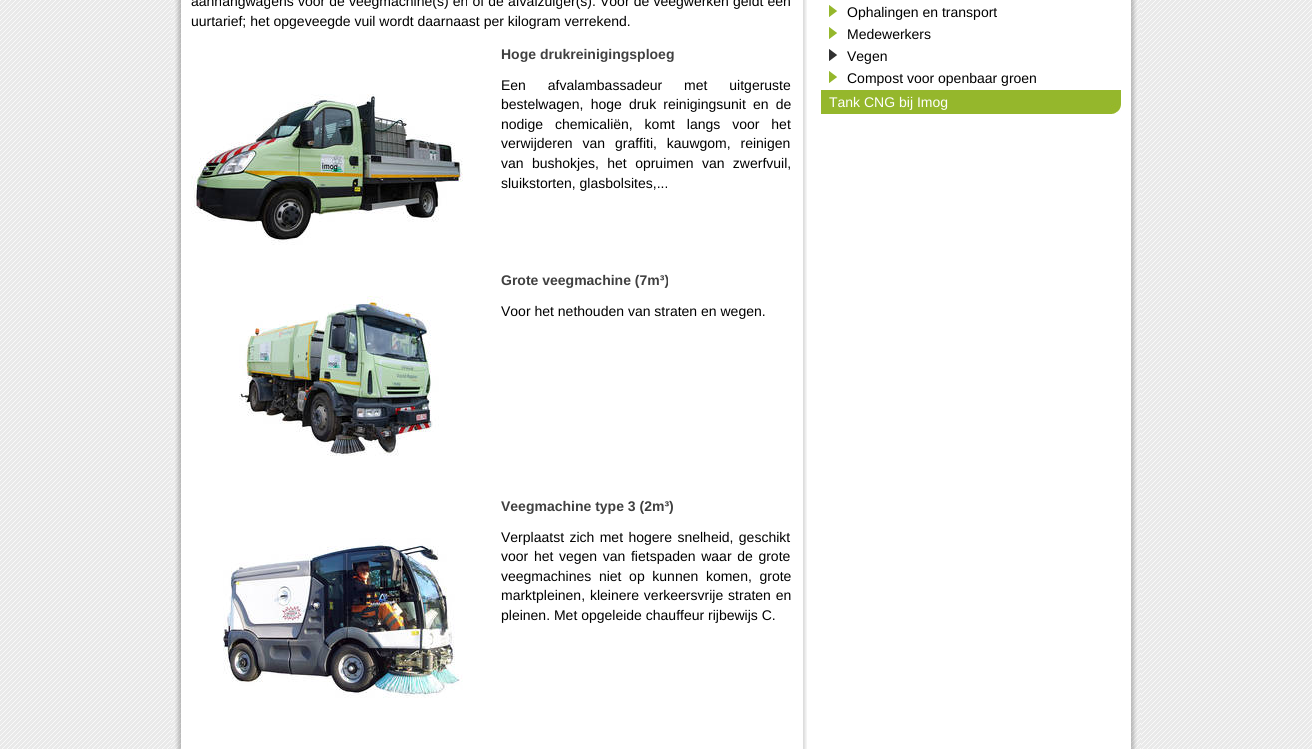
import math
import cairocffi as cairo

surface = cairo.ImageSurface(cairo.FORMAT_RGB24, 1312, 749)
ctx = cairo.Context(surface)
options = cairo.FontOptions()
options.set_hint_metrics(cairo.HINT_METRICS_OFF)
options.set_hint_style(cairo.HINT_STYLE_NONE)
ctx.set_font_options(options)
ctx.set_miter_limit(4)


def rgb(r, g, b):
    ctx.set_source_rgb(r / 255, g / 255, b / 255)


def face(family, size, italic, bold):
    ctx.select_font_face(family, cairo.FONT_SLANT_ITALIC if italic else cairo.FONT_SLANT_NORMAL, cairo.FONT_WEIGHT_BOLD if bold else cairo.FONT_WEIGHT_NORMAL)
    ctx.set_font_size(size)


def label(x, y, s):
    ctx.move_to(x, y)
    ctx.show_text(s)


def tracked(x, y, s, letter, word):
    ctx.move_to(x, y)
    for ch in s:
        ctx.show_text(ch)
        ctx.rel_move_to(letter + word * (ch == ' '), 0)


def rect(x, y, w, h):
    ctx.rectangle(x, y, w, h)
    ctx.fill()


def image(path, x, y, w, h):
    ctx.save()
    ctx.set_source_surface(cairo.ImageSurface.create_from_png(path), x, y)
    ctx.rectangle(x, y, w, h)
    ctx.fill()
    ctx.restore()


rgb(255, 255, 255)
ctx.paint()
image('image0.png', 0, 0, 1312, 749)
image('image1.png', 171, 0, 970, 749)
image('image2.png', 803, 0, 4, 749)
face('Liberation Sans', 14, 0, 0)
rgb(0, 0, 0)
tracked(191, 6, 'aanhangwagens voor de veegmachine(s) en of de afvalzuiger(s). Voor de veegwerken geldt een', 0, 0.25)
label(191, 26, 'uurtarief; het opgeveegde vuil wordt daarnaast per kilogram verrekend.')
image('image3.png', 191, 94, 272, 151)
face('Liberation Sans', 14, 0, 1)
rgb(64, 64, 64)
label(501, 59, 'Hoge drukreinigingsploeg')
face('Liberation Sans', 14, 0, 0)
rgb(0, 0, 0)
tracked(501, 90, 'Een afvalambassadeur met uitgeruste', 0, 18)
tracked(501, 109, 'bestelwagen, hoge druk reinigingsunit en de', 0, 3.25)
tracked(501, 129, 'nodige chemicaliën, komt langs voor het', 0, 8)
tracked(501, 148, 'verwijderen van graffiti, kauwgom, reinigen', 0, 6)
tracked(501, 168, 'van bushokjes, het opruimen van zwerfvuil,', 0, 4.5)
label(501, 188, 'sluikstorten, glasbolsites,...')
image('image4.png', 239, 296, 200, 160)
face('Liberation Sans', 14, 0, 1)
rgb(64, 64, 64)
label(501, 285, 'Grote veegmachine (7m³)')
face('Liberation Sans', 14, 0, 0)
rgb(0, 0, 0)
label(501, 316, 'Voor het nethouden van straten en wegen.')
image('image5.png', 223, 538, 240, 160)
face('Liberation Sans', 14, 0, 1)
rgb(64, 64, 64)
label(501, 511, 'Veegmachine type 3 (2m³)')
face('Liberation Sans', 14, 0, 0)
rgb(0, 0, 0)
tracked(501, 542, 'Verplaatst zich met hogere snelheid, geschikt', 0, 1.5)
tracked(501, 561, 'voor het vegen van fietspaden waar de grote', 0, 1.75)
tracked(501, 581, 'veegmachines niet op kunnen komen, grote', 0, 3.75)
tracked(501, 600, 'marktpleinen, kleinere verkeersvrije straten en', 0, 1)
label(501, 620, 'pleinen. Met opgeleide chauffeur rijbewijs C.')
image('image6.png', 829, 5, 9, 12)
label(847, 17, 'Ophalingen en transport')
image('image6.png', 829, 27, 9, 12)
label(847, 39, 'Medewerkers')
image('image7.png', 829, 49, 9, 12)
label(847, 61, 'Vegen')
image('image6.png', 829, 71, 9, 12)
label(847, 83, 'Compost voor openbaar groen')
rgb(149, 183, 44)
rect(821, 90, 300, 24)
image('image8.png', 1110, 104, 11, 10)
rgb(255, 255, 255)
label(829, 107, 'Tank CNG bij Imog')
surface.write_to_png('render.png')
